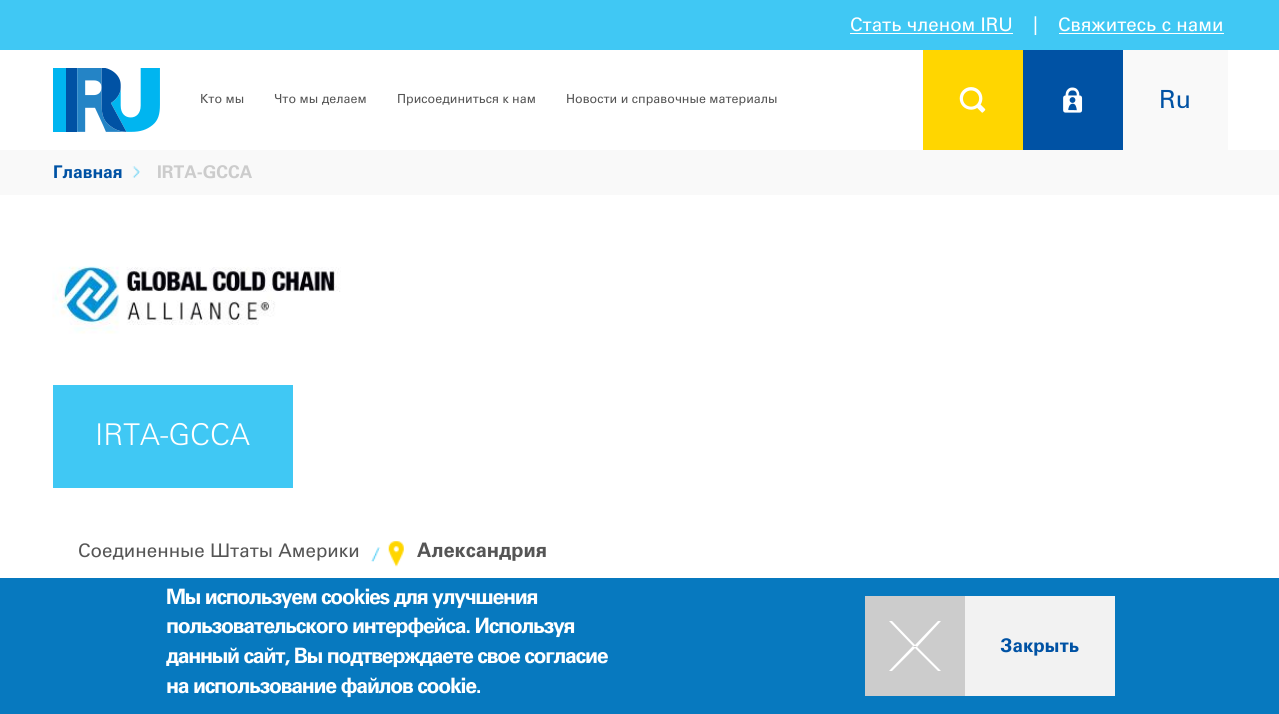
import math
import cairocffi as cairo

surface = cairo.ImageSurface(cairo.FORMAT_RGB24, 1279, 714)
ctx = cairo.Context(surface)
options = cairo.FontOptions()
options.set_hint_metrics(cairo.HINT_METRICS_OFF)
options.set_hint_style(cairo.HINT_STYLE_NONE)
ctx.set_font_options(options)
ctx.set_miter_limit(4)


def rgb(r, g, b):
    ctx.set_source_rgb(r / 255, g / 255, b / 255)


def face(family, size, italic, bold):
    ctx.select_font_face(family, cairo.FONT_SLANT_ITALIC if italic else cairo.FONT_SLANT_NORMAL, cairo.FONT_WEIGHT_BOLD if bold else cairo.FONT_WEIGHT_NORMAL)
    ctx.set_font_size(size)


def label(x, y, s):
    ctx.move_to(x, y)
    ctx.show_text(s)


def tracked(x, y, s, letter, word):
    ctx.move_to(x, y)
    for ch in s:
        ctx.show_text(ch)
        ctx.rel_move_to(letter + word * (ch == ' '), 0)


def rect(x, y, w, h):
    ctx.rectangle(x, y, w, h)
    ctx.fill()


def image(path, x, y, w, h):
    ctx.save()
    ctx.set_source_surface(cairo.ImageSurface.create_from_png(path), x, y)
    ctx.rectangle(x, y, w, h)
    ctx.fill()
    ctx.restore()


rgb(255, 255, 255)
ctx.paint()
rgb(64, 200, 244)
rect(0, 0, 1279, 50)
face('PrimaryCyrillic', 18.75, 0, 0)
rgb(255, 255, 255)
label(850, 31, 'Стать членом IRU')
rect(850, 33, 163, 1)
label(1033, 31, '|')
label(1058, 31, 'Свяжитесь с нами')
rect(1059, 33, 165, 1)
image('image0.png', 53, 68, 107, 64)
face('PrimaryCyrillic', 12.5, 0, 0)
rgb(85, 85, 85)
label(200, 103, 'Кто мы')
label(274, 103, 'Что мы делаем')
label(397, 103, 'Присоединиться к нам')
label(566, 103, 'Новости и справочные материалы')
rgb(255, 214, 0)
rect(923, 50, 100, 100)
image('image1.png', 959, 87, 27, 26)
rgb(0, 82, 164)
rect(1023, 50, 100, 100)
image('image2.png', 1063, 87, 20, 26)
rgb(249, 249, 249)
rect(1123, 50, 105, 100)
face('PrimaryCyrillic', 25, 0, 0)
rgb(0, 82, 164)
label(1159, 108, 'Ru')
rgb(249, 249, 249)
rect(0, 150, 1279, 45)
face('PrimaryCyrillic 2', 17.5, 0, 0)
rgb(0, 82, 164)
label(53, 178, 'Главная')
image('image3.png', 132, 166, 8, 12)
rgb(204, 204, 204)
label(157, 178, 'IRTA-GCCA')
image('image4.png', 52, 266, 289, 68)
rgb(64, 200, 244)
rect(53, 385, 240, 103)
face('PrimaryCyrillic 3', 30, 0, 0)
rgb(255, 255, 255)
label(95, 445, 'IRTA-GCCA')
face('PrimaryCyrillic', 18.75, 0, 0)
rgb(85, 85, 85)
label(78, 557, 'Соединенные Штаты Америки')
image('image5.png', 371, 547, 10, 15)
image('image6.png', 388, 541, 16, 26)
face('PrimaryCyrillic 2', 20, 0, 0)
label(417, 557, 'Aлександрия')
rgb(7, 121, 191)
rect(0, 578, 1279, 136)
face('PrimaryCyrillic 2', 21.25, 0, 0)
rgb(255, 255, 255)
tracked(166, 604, 'Мы используем cookies для улучшения', -1.25, 0)
tracked(166, 633, 'пользовательского интерфейса. Используя', -1.25, 0)
tracked(166, 663, 'данный сайт, Вы подтверждаете свое согласие', -1.25, 0)
tracked(166, 693, 'на использование файлов cookie.', -1.25, 0)
rgb(242, 242, 242)
rect(965, 596, 150, 100)
rgb(204, 204, 204)
rect(865, 596, 100, 100)
rgb(255, 255, 255)
ctx.set_fill_rule(cairo.FILL_RULE_EVEN_ODD)
ctx.new_path()
ctx.move_to(914, 647)
ctx.line_to(889, 621)
ctx.line_to(892, 621)
ctx.line_to(915, 645)
ctx.line_to(938, 621)
ctx.line_to(941, 621)
ctx.line_to(917, 647)
ctx.close_path()
ctx.move_to(913, 646)
ctx.line_to(889, 671)
ctx.line_to(892, 671)
ctx.line_to(915, 648)
ctx.line_to(938, 671)
ctx.line_to(941, 671)
ctx.line_to(916, 646)
ctx.close_path()
ctx.fill()
face('PrimaryCyrillic 2', 18.75, 0, 0)
rgb(0, 82, 164)
label(1000, 652, 'Закрыть')
surface.write_to_png('render.png')
